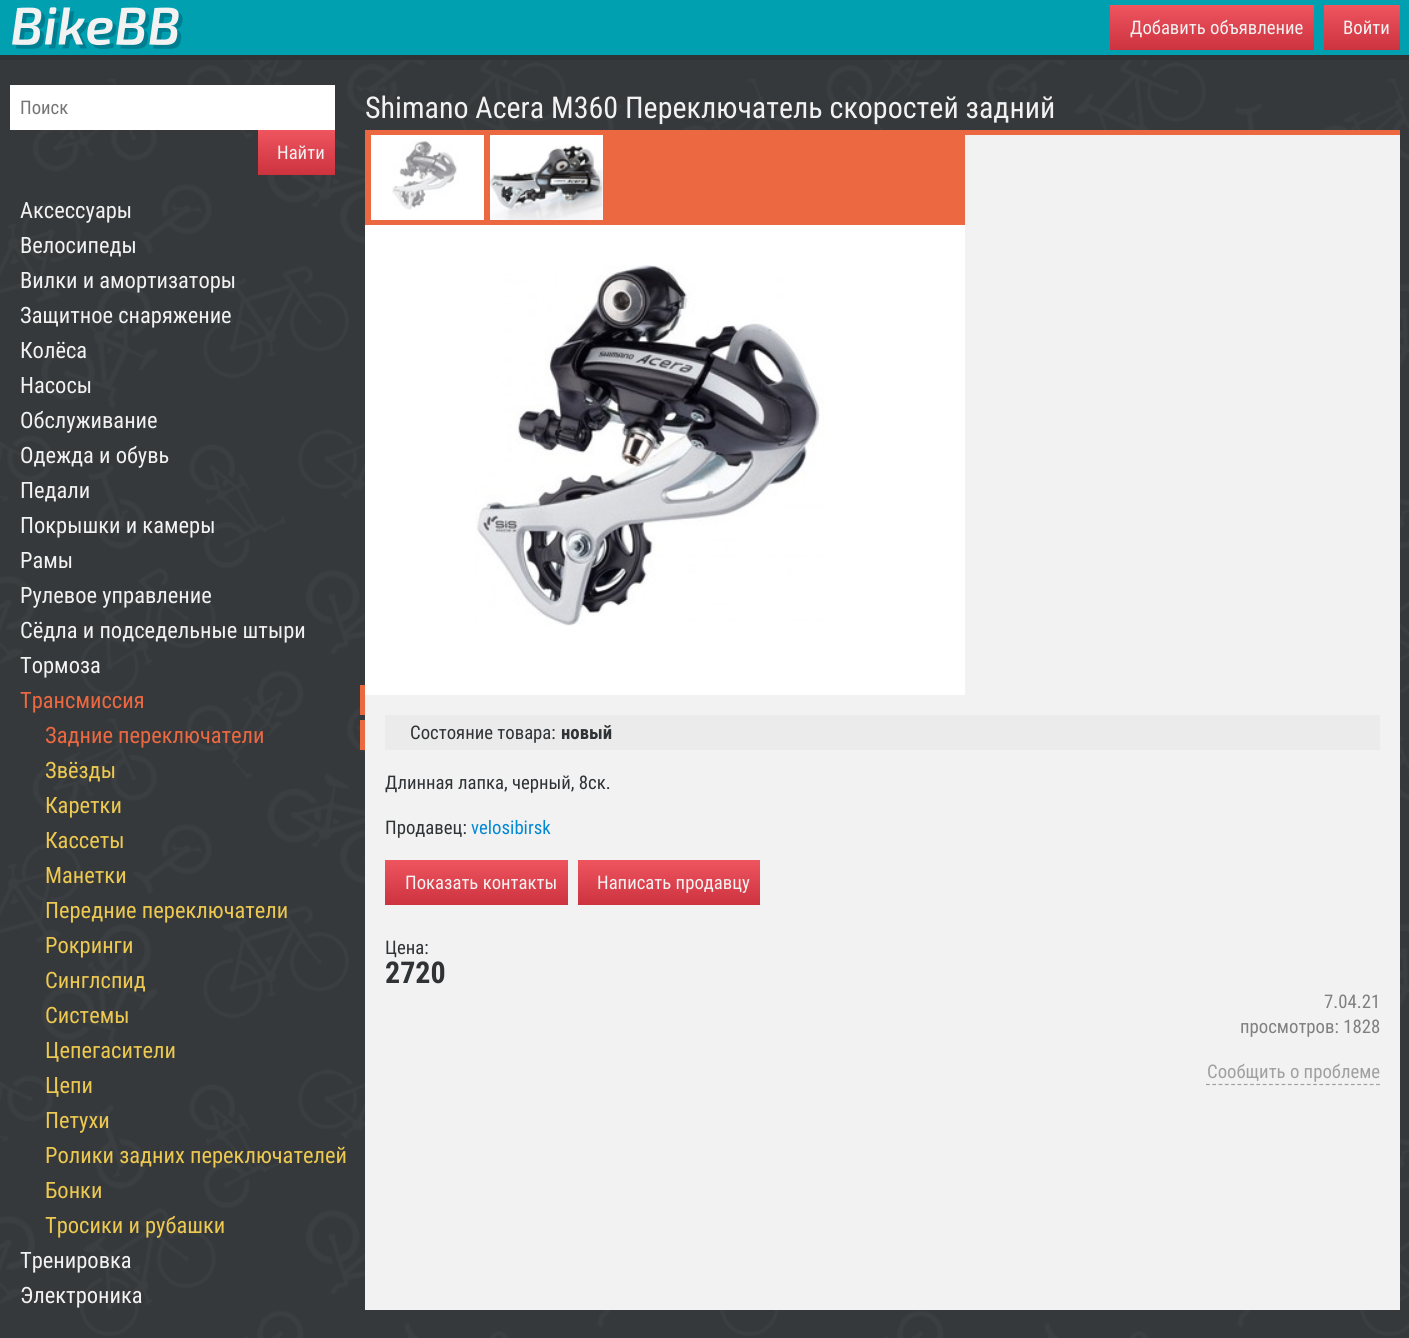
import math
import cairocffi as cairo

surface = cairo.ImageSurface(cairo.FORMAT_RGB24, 1409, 1338)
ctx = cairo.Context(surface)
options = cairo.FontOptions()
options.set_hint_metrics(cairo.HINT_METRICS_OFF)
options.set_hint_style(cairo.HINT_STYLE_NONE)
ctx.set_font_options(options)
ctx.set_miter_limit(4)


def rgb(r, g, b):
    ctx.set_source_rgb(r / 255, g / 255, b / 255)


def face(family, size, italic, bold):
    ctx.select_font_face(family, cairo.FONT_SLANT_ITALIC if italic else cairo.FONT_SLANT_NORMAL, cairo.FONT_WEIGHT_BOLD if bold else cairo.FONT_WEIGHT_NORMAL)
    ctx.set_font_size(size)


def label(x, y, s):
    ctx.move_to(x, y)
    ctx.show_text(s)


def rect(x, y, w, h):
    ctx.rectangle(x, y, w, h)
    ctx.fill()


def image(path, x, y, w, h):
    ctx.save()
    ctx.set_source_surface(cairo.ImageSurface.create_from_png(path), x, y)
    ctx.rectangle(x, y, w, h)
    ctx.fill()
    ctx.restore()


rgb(255, 255, 255)
ctx.paint()
image('image0.png', 0, 60, 1409, 1278)
rgb(0, 160, 176)
rect(0, 0, 1409, 55)
rgb(47, 51, 53)
rect(0, 55, 1409, 5)
image('image1.png', 12, 7, 171, 42)
gradient = cairo.LinearGradient(1212, 5, 1212, 50)
gradient.add_color_stop_rgba(0, 0.933, 0.333, 0.373, 1)
gradient.add_color_stop_rgba(1, 0.8, 0.2, 0.247, 1)
ctx.set_source(gradient)
rect(1110, 5, 204, 45)
face('Roboto Condensed', 18.75, 0, 0)
rgb(242, 242, 242)
label(1130, 34, 'Добавить объявление')
gradient = cairo.LinearGradient(1362, 5, 1362, 50)
gradient.add_color_stop_rgba(0, 0.933, 0.333, 0.373, 1)
gradient.add_color_stop_rgba(1, 0.8, 0.2, 0.247, 1)
ctx.set_source(gradient)
rect(1324, 5, 76, 45)
rgb(242, 242, 242)
label(1343, 34, 'Войти')
rgb(255, 255, 255)
rect(10, 85, 325, 45)
rgb(117, 117, 117)
label(20, 114, 'Поиск')
gradient = cairo.LinearGradient(296, 130, 296, 175)
gradient.add_color_stop_rgba(0, 0.933, 0.333, 0.373, 1)
gradient.add_color_stop_rgba(1, 0.8, 0.2, 0.247, 1)
ctx.set_source(gradient)
rect(258, 130, 77, 45)
rgb(242, 242, 242)
label(277, 159, 'Найти')
face('Roboto Condensed', 22.5, 0, 0)
label(20, 218, 'Аксессуары')
label(20, 253, 'Велосипеды')
label(20, 288, 'Вилки и амортизаторы')
label(20, 323, 'Защитное снаряжение')
label(20, 358, 'Колёса')
label(20, 393, 'Насосы')
label(20, 428, 'Обслуживание')
label(20, 463, 'Одежда и обувь')
label(20, 498, 'Педали')
label(20, 533, 'Покрышки и камеры')
label(20, 568, 'Рамы')
label(20, 603, 'Рулевое управление')
label(20, 638, 'Сёдла и подседельные штыри')
label(20, 673, 'Тормоза')
rgb(235, 104, 65)
rect(360, 685, 5, 30)
label(20, 708, 'Трансмиссия')
rect(360, 720, 5, 30)
label(45, 743, 'Задние переключатели')
rgb(237, 201, 81)
label(45, 778, 'Звёзды')
label(45, 813, 'Каретки')
label(45, 848, 'Кассеты')
label(45, 883, 'Манетки')
label(45, 918, 'Передние переключатели')
label(45, 953, 'Рокринги')
label(45, 988, 'Синглспид')
label(45, 1023, 'Системы')
label(45, 1058, 'Цепегасители')
label(45, 1093, 'Цепи')
label(45, 1128, 'Петухи')
label(45, 1163, 'Ролики задних переключателей')
label(45, 1198, 'Бонки')
label(45, 1233, 'Тросики и рубашки')
rgb(242, 242, 242)
label(20, 1268, 'Тренировка')
label(20, 1303, 'Электроника')
face('Roboto Condensed', 30, 0, 0)
label(365, 118, 'Shimano Acera M360 Переключатель скоростей задний')
rgb(235, 104, 65)
rect(365, 130, 1035, 5)
rgb(242, 242, 242)
rect(365, 135, 1035, 1175)
rgb(235, 104, 65)
rect(365, 135, 600, 90)
rgb(255, 255, 255)
rect(371, 135, 113, 85)
image('image2.png', 392, 139, 68, 71)
rect(490, 135, 113, 85)
image('image3.png', 490, 145, 113, 75)
rect(365, 225, 600, 470)
image('image4.png', 475, 265, 350, 361)
rgb(235, 235, 235)
rect(385, 715, 995, 35)
face('Roboto Condensed', 18.75, 0, 0)
rgb(47, 51, 53)
label(410, 739, 'Состояние товара:')
face('Roboto Condensed', 18.75, 0, 1)
label(561, 739, 'новый')
face('Roboto Condensed', 18.75, 0, 0)
label(385, 789, 'Длинная лапка, черный, 8ск.')
label(385, 834, 'Продавец:')
rgb(2, 136, 209)
label(471, 834, 'velosibirsk')
gradient = cairo.LinearGradient(476, 860, 476, 905)
gradient.add_color_stop_rgba(0, 0.933, 0.333, 0.373, 1)
gradient.add_color_stop_rgba(1, 0.8, 0.2, 0.247, 1)
ctx.set_source(gradient)
rect(385, 860, 183, 45)
rgb(242, 242, 242)
label(405, 889, 'Показать контакты')
gradient = cairo.LinearGradient(669, 860, 669, 905)
gradient.add_color_stop_rgba(0, 0.933, 0.333, 0.373, 1)
gradient.add_color_stop_rgba(1, 0.8, 0.2, 0.247, 1)
ctx.set_source(gradient)
rect(578, 860, 182, 45)
rgb(242, 242, 242)
label(597, 889, 'Написать продавцу')
rgb(47, 51, 53)
label(385, 954, 'Цена:')
face('Roboto Condensed', 30, 0, 1)
label(385, 983, '2720')
face('Roboto Condensed', 18.75, 0, 0)
rgb(128, 128, 128)
label(1324, 1008, '7.04.21')
label(1240, 1033, 'просмотров: 1828')
ctx.new_path()
ctx.move_to(1206, 1084.5)
ctx.line_to(1380, 1084.5)
rgb(160, 160, 160)
ctx.set_line_width(1.2)
ctx.set_dash([3.75, 2.55])
ctx.stroke()
label(1207, 1078, 'Сообщить о проблеме')
surface.write_to_png('render.png')
